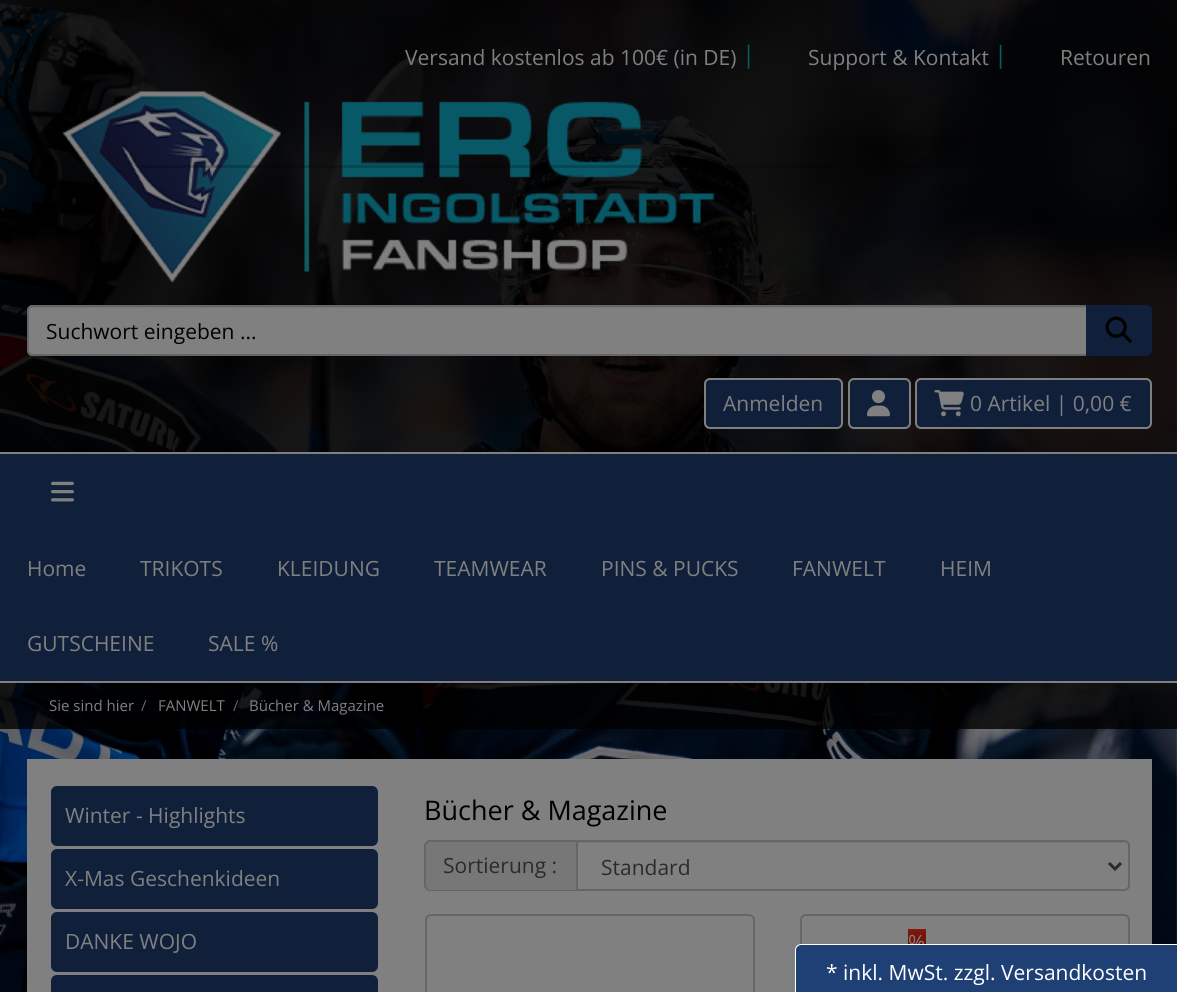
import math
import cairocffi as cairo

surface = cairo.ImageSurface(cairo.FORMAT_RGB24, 1177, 992)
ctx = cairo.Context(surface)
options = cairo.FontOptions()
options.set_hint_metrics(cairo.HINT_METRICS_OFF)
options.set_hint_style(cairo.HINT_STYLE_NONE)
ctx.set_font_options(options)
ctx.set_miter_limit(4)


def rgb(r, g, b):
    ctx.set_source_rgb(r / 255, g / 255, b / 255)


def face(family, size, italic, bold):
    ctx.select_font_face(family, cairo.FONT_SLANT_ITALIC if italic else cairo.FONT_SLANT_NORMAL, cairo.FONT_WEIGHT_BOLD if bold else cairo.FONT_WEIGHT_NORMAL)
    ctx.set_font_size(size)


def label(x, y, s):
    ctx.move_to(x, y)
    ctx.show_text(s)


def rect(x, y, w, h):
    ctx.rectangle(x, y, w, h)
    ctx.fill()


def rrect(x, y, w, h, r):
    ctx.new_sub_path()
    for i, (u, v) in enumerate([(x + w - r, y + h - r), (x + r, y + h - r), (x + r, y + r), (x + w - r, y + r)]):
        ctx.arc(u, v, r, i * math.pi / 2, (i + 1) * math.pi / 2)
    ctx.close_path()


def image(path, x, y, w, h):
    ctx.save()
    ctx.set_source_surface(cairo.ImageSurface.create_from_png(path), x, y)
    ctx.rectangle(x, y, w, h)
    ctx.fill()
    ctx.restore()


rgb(255, 255, 255)
ctx.paint()
image('image0.png', 0, 0, 1177, 992)
ctx.set_source_rgba(0, 0, 0, 0.8)
rect(0, 0, 1177, 729)
face('Open Sans', 21, 0, 0)
rgb(128, 128, 128)
label(405, 65, 'Versand kostenlos ab 100€ (in DE)')
face('Open Sans', 24, 0, 0)
rgb(9, 89, 103)
label(742, 63, '|')
face('Open Sans', 21, 0, 0)
rgb(128, 128, 128)
label(808, 65, 'Support & Kontakt')
face('Open Sans', 24, 0, 0)
rgb(9, 89, 103)
label(994, 63, '|')
face('Open Sans', 21, 0, 0)
rgb(128, 128, 128)
label(1060, 65, 'Retouren')
image('image1.png', 62, 91, 653, 192)
ctx.new_path()
ctx.move_to(33, 305)
ctx.line_to(1088, 305)
ctx.line_to(1088, 356)
ctx.line_to(33, 356)
ctx.curve_to(29.5, 356, 27, 353.5, 27, 350)
ctx.line_to(27, 311)
ctx.curve_to(27, 307.5, 29.5, 305, 33, 305)
ctx.close_path()
ctx.fill()
rgb(118, 118, 118)
ctx.new_path()
ctx.move_to(33, 308)
ctx.line_to(1086, 308)
ctx.line_to(1086, 306)
ctx.line_to(34, 306)
ctx.curve_to(32, 306, 30, 308, 29, 310)
ctx.curve_to(30, 309, 32, 308, 33, 308)
ctx.close_path()
ctx.fill()
ctx.new_path()
ctx.move_to(33, 306)
ctx.line_to(1087, 306)
ctx.line_to(1087, 355)
ctx.line_to(33, 355)
ctx.curve_to(30, 355, 28, 353, 28, 350)
ctx.line_to(28, 311)
ctx.curve_to(28, 308, 30, 306, 33, 306)
ctx.close_path()
rgb(102, 102, 102)
ctx.stroke()
rgb(0, 0, 0)
label(46, 339, 'Suchwort eingeben ...')
rgb(16, 32, 59)
ctx.new_path()
ctx.move_to(1087, 306)
ctx.line_to(1146, 306)
ctx.curve_to(1149, 306, 1151, 308, 1151, 311)
ctx.line_to(1151, 350)
ctx.curve_to(1151, 353, 1149, 355, 1146, 355)
ctx.line_to(1087, 355)
ctx.close_path()
ctx.fill_preserve()
ctx.stroke()
image('image2.png', 1105, 316, 27, 27)
rrect(705, 379, 137, 49, 5)
ctx.fill_preserve()
rgb(128, 128, 128)
ctx.stroke()
label(723, 411, 'Anmelden')
rgb(16, 32, 59)
rrect(849, 379, 61, 49, 5)
ctx.fill_preserve()
rgb(128, 128, 128)
ctx.stroke()
image('image3.png', 867, 390, 23, 27)
rgb(16, 32, 59)
rrect(916, 379, 235, 49, 5)
ctx.fill_preserve()
rgb(128, 128, 128)
ctx.stroke()
image('image4.png', 934, 390, 30, 27)
label(970, 411, '0 Artikel | 0,00 €')
rgb(16, 32, 59)
rect(0, 454, 1177, 227)
rgb(128, 128, 128)
rect(0, 452, 1177, 2)
rect(0, 681, 1177, 2)
image('image5.png', 51, 481, 23, 21)
label(27, 576, 'Home')
label(140, 576, 'TRIKOTS')
label(277, 576, 'KLEIDUNG')
label(434, 576, 'TEAMWEAR')
label(601, 576, 'PINS & PUCKS')
label(792, 576, 'FANWELT')
label(940, 576, 'HEIM')
label(27, 651, 'GUTSCHEINE')
label(208, 651, 'SALE %')
face('Open Sans', 15, 0, 0)
label(49, 711, 'Sie sind hier')
rgb(102, 102, 102)
label(141, 711, '/')
rgb(128, 128, 128)
label(158, 711, 'FANWELT')
rgb(102, 102, 102)
label(233, 711, '/')
rgb(128, 128, 128)
label(249, 711, 'Bücher & Magazine')
ctx.set_source_rgba(0, 0, 0, 0.2)
rrect(140, 165, 900, 3, 1.5)
ctx.fill()
rgb(128, 128, 128)
rect(27, 759, 1125, 233)
rgb(16, 32, 59)
rrect(51, 786, 327, 60, 6)
ctx.fill()
face('Open Sans', 21, 0, 0)
rgb(128, 128, 128)
label(65, 823, 'Winter - Highlights')
rgb(16, 32, 59)
rrect(51, 849, 327, 60, 6)
ctx.fill()
rgb(128, 128, 128)
label(65, 886, 'X-Mas Geschenkideen')
rgb(16, 32, 59)
rrect(51, 912, 327, 60, 6)
ctx.fill()
rgb(128, 128, 128)
label(65, 949, 'DANKE WOJO')
rgb(16, 32, 59)
rrect(51, 975, 327, 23, 6)
ctx.fill()
face('Open Sans', 27, 0, 0)
rgb(0, 0, 0)
label(424, 820, 'Bücher & Magazine')
rgb(119, 119, 119)
ctx.new_path()
ctx.move_to(431, 840)
ctx.line_to(576, 840)
ctx.line_to(576, 891)
ctx.line_to(431, 891)
ctx.curve_to(427.5, 891, 425, 888.5, 425, 885)
ctx.line_to(425, 846)
ctx.curve_to(425, 842.5, 427.5, 840, 431, 840)
ctx.close_path()
ctx.fill()
rgb(102, 102, 102)
ctx.set_fill_rule(cairo.FILL_RULE_EVEN_ODD)
ctx.new_path()
ctx.move_to(430, 840)
ctx.line_to(576, 840)
ctx.line_to(576, 891)
ctx.line_to(430, 891)
ctx.curve_to(427, 891, 424, 888, 424, 885)
ctx.line_to(424, 846)
ctx.curve_to(424, 843, 427, 840, 430, 840)
ctx.close_path()
ctx.move_to(430, 842)
ctx.line_to(576, 842)
ctx.line_to(576, 890)
ctx.line_to(430, 890)
ctx.curve_to(428, 890, 426, 887, 426, 885)
ctx.line_to(426, 846)
ctx.curve_to(426, 844, 428, 842, 430, 842)
ctx.close_path()
ctx.fill()
face('Open Sans', 21, 0, 0)
rgb(43, 43, 43)
label(443, 873, 'Sortierung :')
rgb(118, 118, 118)
ctx.set_fill_rule(cairo.FILL_RULE_WINDING)
ctx.new_path()
ctx.move_to(578, 843)
ctx.line_to(1124, 843)
ctx.curve_to(1126, 843, 1128, 845, 1128, 848)
ctx.curve_to(1128, 845, 1126, 842, 1123, 842)
ctx.line_to(578, 842)
ctx.close_path()
ctx.fill()
ctx.new_path()
ctx.move_to(577, 841)
ctx.line_to(1124, 841)
ctx.curve_to(1127, 841, 1129, 843, 1129, 846)
ctx.line_to(1129, 885)
ctx.curve_to(1129, 888, 1127, 890, 1124, 890)
ctx.line_to(577, 890)
ctx.close_path()
rgb(102, 102, 102)
ctx.stroke()
ctx.new_path()
ctx.move_to(1109, 863)
ctx.line_to(1115, 869)
ctx.line_to(1121, 863)
rgb(43, 43, 43)
ctx.set_line_width(3)
ctx.stroke()
label(601, 875, 'Standard')
rrect(426, 915, 328, 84, 5)
rgb(102, 102, 102)
ctx.set_line_width(2)
ctx.stroke()
rrect(801, 915, 328, 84, 5)
ctx.stroke()
gradient = cairo.LinearGradient(917, 929, 917, 957)
gradient.add_color_stop_rgba(0, 0.502, 0.094, 0.051, 1)
gradient.add_color_stop_rgba(1, 0.408, 0.008, 0.008, 1)
ctx.set_source(gradient)
rect(908, 929, 18, 15)
rgb(128, 128, 128)
label(908, 950, '%')
rgb(31, 64, 117)
ctx.new_path()
ctx.move_to(801, 944)
ctx.line_to(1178, 944)
ctx.line_to(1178, 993)
ctx.line_to(795, 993)
ctx.line_to(795, 950)
ctx.curve_to(795, 946.5, 797.5, 944, 801, 944)
ctx.close_path()
ctx.fill()
rgb(255, 255, 255)
ctx.set_fill_rule(cairo.FILL_RULE_EVEN_ODD)
ctx.new_path()
ctx.move_to(801, 944)
ctx.line_to(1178, 944)
ctx.line_to(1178, 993)
ctx.line_to(795, 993)
ctx.line_to(795, 950)
ctx.curve_to(795, 946, 798, 944, 801, 944)
ctx.close_path()
ctx.move_to(801, 945)
ctx.line_to(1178, 945)
ctx.line_to(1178, 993)
ctx.line_to(796, 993)
ctx.line_to(796, 950)
ctx.curve_to(796, 947, 799, 945, 801, 945)
ctx.close_path()
ctx.fill()
label(826, 980, '* inkl. MwSt. zzgl. Versandkosten')
surface.write_to_png('render.png')
